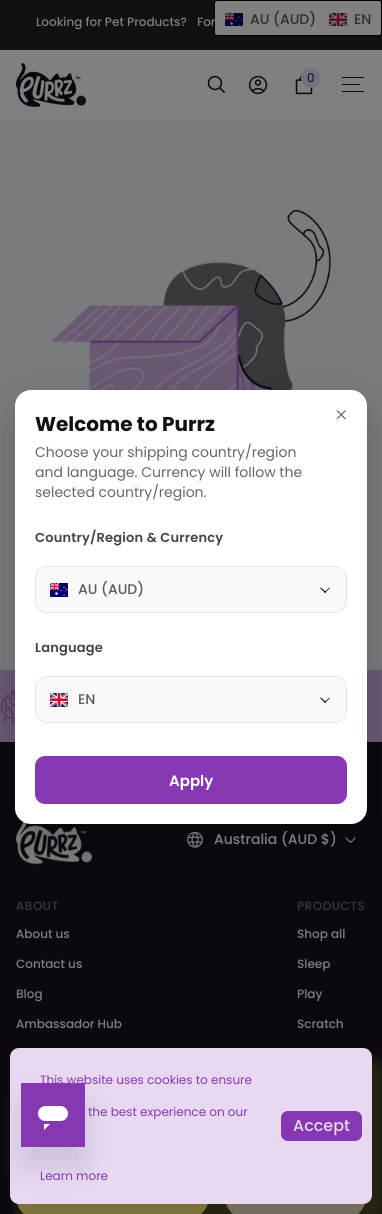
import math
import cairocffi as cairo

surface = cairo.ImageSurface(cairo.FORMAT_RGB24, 382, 1214)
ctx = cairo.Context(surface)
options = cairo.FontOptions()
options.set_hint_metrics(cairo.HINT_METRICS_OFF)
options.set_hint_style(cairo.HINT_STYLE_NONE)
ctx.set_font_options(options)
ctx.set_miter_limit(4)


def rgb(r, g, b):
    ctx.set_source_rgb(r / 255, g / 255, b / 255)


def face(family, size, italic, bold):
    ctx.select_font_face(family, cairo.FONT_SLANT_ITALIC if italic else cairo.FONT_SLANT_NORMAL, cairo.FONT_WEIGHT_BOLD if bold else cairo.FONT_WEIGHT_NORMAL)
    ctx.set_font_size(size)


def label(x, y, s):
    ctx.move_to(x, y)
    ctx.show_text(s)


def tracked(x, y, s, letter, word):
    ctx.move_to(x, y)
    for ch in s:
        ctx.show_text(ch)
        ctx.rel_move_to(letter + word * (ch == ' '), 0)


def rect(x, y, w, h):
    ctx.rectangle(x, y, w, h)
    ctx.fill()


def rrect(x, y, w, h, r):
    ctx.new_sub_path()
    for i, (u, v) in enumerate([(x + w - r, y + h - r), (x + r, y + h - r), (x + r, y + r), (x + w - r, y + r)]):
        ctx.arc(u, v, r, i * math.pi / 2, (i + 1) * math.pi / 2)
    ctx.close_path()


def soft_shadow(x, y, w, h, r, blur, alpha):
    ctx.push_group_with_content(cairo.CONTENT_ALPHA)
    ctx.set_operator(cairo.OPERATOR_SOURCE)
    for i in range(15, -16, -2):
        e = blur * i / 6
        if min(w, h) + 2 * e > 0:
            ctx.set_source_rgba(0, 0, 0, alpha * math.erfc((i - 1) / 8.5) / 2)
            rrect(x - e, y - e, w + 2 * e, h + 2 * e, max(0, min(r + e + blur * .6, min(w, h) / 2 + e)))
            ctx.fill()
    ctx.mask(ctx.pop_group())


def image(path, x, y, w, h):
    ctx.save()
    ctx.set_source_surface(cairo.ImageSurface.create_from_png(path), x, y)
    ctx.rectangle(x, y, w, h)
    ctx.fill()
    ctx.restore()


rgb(122, 123, 124)
ctx.paint()
rgb(17, 14, 20)
rect(0, 0, 382, 50)
rgb(128, 128, 128)
rrect(214.5, 0.5, 167, 35, 2.5)
ctx.fill_preserve()
rgb(0, 0, 0)
ctx.set_line_width(1)
ctx.stroke()
image('image0.png', 225, 13, 18, 13)
face('Poppins Medium', 14, 0, 0)
rgb(46, 46, 46)
label(250, 24, 'AU (AUD)')
image('image1.png', 329, 13, 18, 13)
label(354, 24, 'EN')
image('image10.png', 51, 210, 280, 180)
rgb(106, 89, 115)
rect(0, 670, 382, 72)
image('image11.png', 0, 690, 15, 32)
rgb(11, 8, 15)
rect(0, 742, 382, 472)
image('image12.png', 16, 821, 76, 44)
image('image13.png', 187, 831, 16, 17)
ctx.new_path()
ctx.move_to(345.5, 837.5)
ctx.line_to(350.5, 842.5)
ctx.line_to(355.5, 837.5)
rgb(128, 128, 128)
ctx.set_line_width(1.2)
ctx.set_line_join(cairo.LINE_JOIN_ROUND)
ctx.stroke()
rgb(0, 0, 0)
soft_shadow(15, 410, 352, 434, 16, 25, 0.18)
rgb(255, 255, 255)
rrect(15, 390, 352, 434, 16)
ctx.fill()
image('image2.png', 336, 410, 10, 10)
face('Poppins', 20, 0, 1)
rgb(17, 17, 17)
label(35, 431, 'Welcome to Purrz')
face('Poppins', 14, 0, 0)
rgb(102, 102, 102)
label(35, 457, 'Choose your shipping country/region')
label(35, 477, 'and language. Currency will follow the')
label(35, 497, 'selected country/region.')
face('Poppins SemiBold', 13, 0, 0)
rgb(68, 68, 68)
tracked(35, 542, 'Country/Region & Currency', 0.2, 0)
rgb(250, 250, 250)
rrect(35.5, 566.5, 311, 46, 11.5)
ctx.fill_preserve()
rgb(230, 230, 230)
ctx.set_line_width(1)
ctx.set_line_join(cairo.LINE_JOIN_MITER)
ctx.stroke()
image('image3.png', 50, 583, 18, 14)
face('Poppins Medium', 14, 0, 0)
rgb(92, 92, 92)
label(78, 594, 'AU (AUD)')
rgb(25, 25, 25)
ctx.new_path()
ctx.move_to(329.5, 587.5)
ctx.line_to(330, 588)
ctx.line_to(325, 593)
ctx.line_to(324.5, 592)
ctx.close_path()
ctx.fill()
ctx.new_path()
ctx.move_to(321, 587.5)
ctx.line_to(326, 592)
ctx.line_to(325, 593)
ctx.line_to(320, 588)
ctx.close_path()
ctx.fill()
face('Poppins SemiBold', 13, 0, 0)
rgb(68, 68, 68)
tracked(35, 652, 'Language', 0.2, 0)
rgb(250, 250, 250)
rrect(35.5, 676.5, 311, 46, 11.5)
ctx.fill_preserve()
rgb(230, 230, 230)
ctx.stroke()
image('image4.png', 50, 693, 18, 14)
face('Poppins Medium', 14, 0, 0)
rgb(92, 92, 92)
label(78, 704, 'EN')
rgb(25, 25, 25)
ctx.new_path()
ctx.move_to(329.5, 697.5)
ctx.line_to(330, 698)
ctx.line_to(325, 703)
ctx.line_to(324.5, 702)
ctx.close_path()
ctx.fill()
ctx.new_path()
ctx.move_to(321, 697.5)
ctx.line_to(326, 702)
ctx.line_to(325, 703)
ctx.line_to(320, 698)
ctx.close_path()
ctx.fill()
rgb(134, 55, 178)
rrect(35, 756, 312, 48, 10)
ctx.fill()
face('Poppins SemiBold', 15, 0, 0)
rgb(255, 255, 255)
label(169, 786, 'Apply')
face('Poppins Medium', 12, 0, 0)
rgb(128, 128, 128)
label(36, 26, 'Looking for Pet Products?')
label(197, 26, 'For')
rect(0, 50, 382, 70)
image('image5.png', 16, 63, 70, 44)
image('image6.png', 207, 75, 19, 19)
image('image7.png', 248, 75, 20, 20)
image('image8.png', 295, 75, 18, 20)
rgb(113, 116, 128)
ctx.arc(311, 78, 10, 0, 2 * math.pi)
ctx.fill()
face('Poppins', 12, 0, 0)
rgb(8, 9, 18)
label(307, 82, '0')
image('image9.png', 342, 77, 22, 15)
face('Poppins Medium', 14, 0, 0)
rgb(128, 128, 128)
label(214, 844, 'Australia (AUD $)')
face('Poppins Medium', 12, 0, 0)
rgb(58, 56, 60)
tracked(16, 910, 'ABOUT', 0.5, 0)
rgb(128, 128, 128)
label(16, 938, 'About us')
label(16, 968, 'Contact us')
label(16, 998, 'Blog')
label(16, 1028, 'Ambassador Hub')
rgb(58, 56, 60)
tracked(297, 910, 'PRODUCTS', 0.5, 0)
rgb(128, 128, 128)
label(297, 938, 'Shop all')
label(297, 968, 'Sleep')
label(297, 998, 'Play')
label(297, 1028, 'Scratch')
rgb(128, 115, 69)
rrect(16, 1173, 193, 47, 23.5)
ctx.fill()
rgb(117, 108, 121)
rrect(225, 1173, 141, 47, 23.5)
ctx.fill()
rgb(112, 114, 20)
soft_shadow(17, 1060, 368, 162, 12, 6, 0.27)
rgb(233, 216, 242)
rrect(10, 1048, 362, 156, 9)
ctx.fill()
rgb(23, 73, 77)
soft_shadow(21, 1103, 64, 64, 0, 15, 0.15)
face('Poppins', 12, 0, 0)
rgb(134, 55, 178)
label(40, 1084, 'This website uses cookies to ensure')
image('image14.png', 21, 1083, 64, 64)
label(88, 1116, 'the best experience on our')
label(40, 1180, 'Learn more')
rrect(282, 1112, 79, 28, 6)
ctx.fill_preserve()
ctx.set_line_width(2)
ctx.stroke()
face('Poppins Medium', 16, 0, 0)
rgb(233, 216, 242)
label(293, 1131, 'Accept')
surface.write_to_png('render.png')
